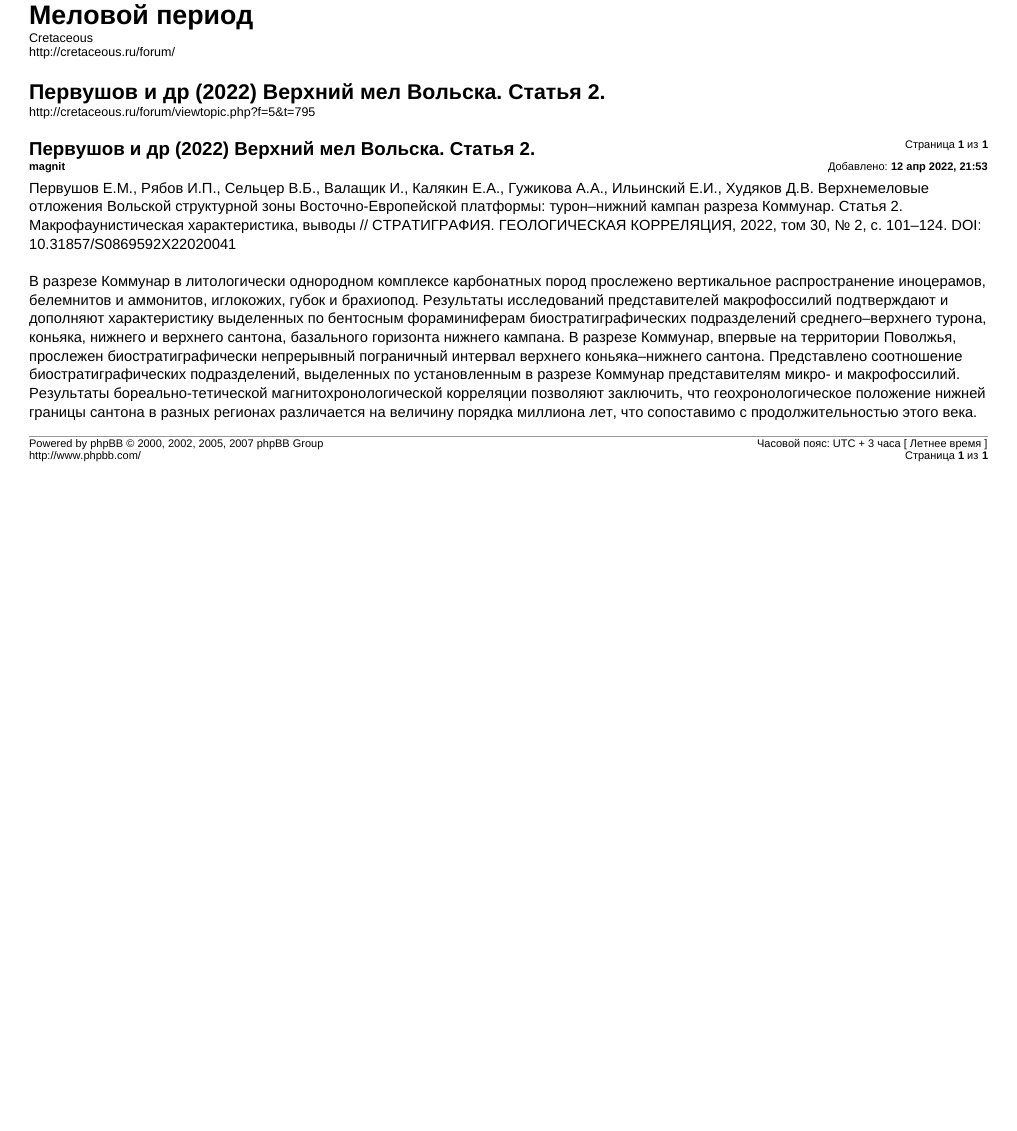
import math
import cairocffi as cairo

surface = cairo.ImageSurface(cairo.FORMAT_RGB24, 1017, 1131)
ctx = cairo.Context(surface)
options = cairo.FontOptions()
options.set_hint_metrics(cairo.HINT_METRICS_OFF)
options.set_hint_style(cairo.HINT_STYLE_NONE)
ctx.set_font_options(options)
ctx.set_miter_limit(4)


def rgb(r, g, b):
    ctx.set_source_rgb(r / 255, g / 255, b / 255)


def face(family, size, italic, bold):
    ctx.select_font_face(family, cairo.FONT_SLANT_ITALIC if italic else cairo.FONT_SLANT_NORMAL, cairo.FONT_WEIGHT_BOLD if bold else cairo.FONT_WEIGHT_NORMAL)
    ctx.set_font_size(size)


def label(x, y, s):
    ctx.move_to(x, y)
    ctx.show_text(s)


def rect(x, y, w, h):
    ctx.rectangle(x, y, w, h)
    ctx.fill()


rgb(255, 255, 255)
ctx.paint()
face('Liberation Sans', 26.75, 0, 1)
rgb(0, 0, 0)
label(29, 24, 'Меловой период')
face('Liberation Sans', 12.5, 0, 0)
label(29, 42, 'Сretaceous')
label(29, 56, 'http://cretaceous.ru/forum/')
face('Liberation Sans', 21.3, 0, 1)
label(29, 99, 'Первушов и др (2022) Верхний мел Вольска. Статья 2.')
face('Liberation Sans', 12.5, 0, 0)
label(29, 116, 'http://cretaceous.ru/forum/viewtopic.php?f=5&t=795')
face('Liberation Sans', 11, 0, 0)
label(905, 148, 'Страница')
face('Liberation Sans', 11, 0, 1)
label(958, 148, '1')
face('Liberation Sans', 11, 0, 0)
label(967, 148, 'из')
face('Liberation Sans', 11, 0, 1)
label(982, 148, '1')
face('Liberation Sans', 18.7, 0, 1)
label(29, 155, 'Первушов и др (2022) Верхний мел Вольска. Статья 2.')
face('Liberation Sans', 11, 0, 1)
label(29, 170, 'magnit')
face('Liberation Sans', 11, 0, 0)
label(828, 170, 'Добавлено:')
face('Liberation Sans', 11, 0, 1)
label(891, 170, '12 апр 2022, 21:53')
face('Liberation Sans', 14.67, 0, 0)
label(29, 193, 'Первушов Е.М., Рябов И.П., Сельцер В.Б., Валащик И., Калякин Е.А., Гужикова А.А., Ильинский Е.И., Худяков Д.В. Верхнемеловые')
label(29, 211, 'отложения Вольской структурной зоны Восточно-Европейской платформы: турон–нижний кампан разреза Коммунар. Статья 2.')
label(29, 230, 'Макрофаунистическая характеристика, выводы // СТРАТИГРАФИЯ. ГЕОЛОГИЧЕСКАЯ КОРРЕЛЯЦИЯ, 2022, том 30, № 2, с. 101–124. DOI:')
label(29, 249, '10.31857/S0869592X22020041')
label(29, 286, 'В разрезе Коммунар в литологически однородном комплексе карбонатных пород прослежено вертикальное распространение иноцерамов,')
label(29, 305, 'белемнитов и аммонитов, иглокожих, губок и брахиопод. Результаты исследований представителей макрофоссилий подтверждают и')
label(29, 323, 'дополняют характеристику выделенных по бентосным фораминиферам биостратиграфических подразделений среднего–верхнего турона,')
label(29, 342, 'коньяка, нижнего и верхнего сантона, базального горизонта нижнего кампана. В разрезе Коммунар, впервые на территории Поволжья,')
label(29, 361, 'прослежен биостратиграфически непрерывный пограничный интервал верхнего коньяка–нижнего сантона. Представлено соотношение')
label(29, 379, 'биостратиграфических подразделений, выделенных по установленным в разрезе Коммунар представителям микро- и макрофоссилий.')
label(29, 398, 'Результаты бореально-тетической магнитохронологической корреляции позволяют заключить, что геохронологическое положение нижней')
label(29, 417, 'границы сантона в разных регионах различается на величину порядка миллиона лет, что сопоставимо с продолжительностью этого века.')
rgb(153, 153, 153)
rect(29, 436, 959, 1)
face('Liberation Sans', 11, 0, 0)
rgb(0, 0, 0)
label(29, 447, 'Powered by phpBB © 2000, 2002, 2005, 2007 phpBB Group')
label(29, 459, 'http://www.phpbb.com/')
label(757, 447, 'Часовой пояс: UTC + 3 часа [ Летнее время ]')
label(905, 459, 'Страница')
face('Liberation Sans', 11, 0, 1)
label(958, 459, '1')
face('Liberation Sans', 11, 0, 0)
label(967, 459, 'из')
face('Liberation Sans', 11, 0, 1)
label(982, 459, '1')
surface.write_to_png('render.png')
